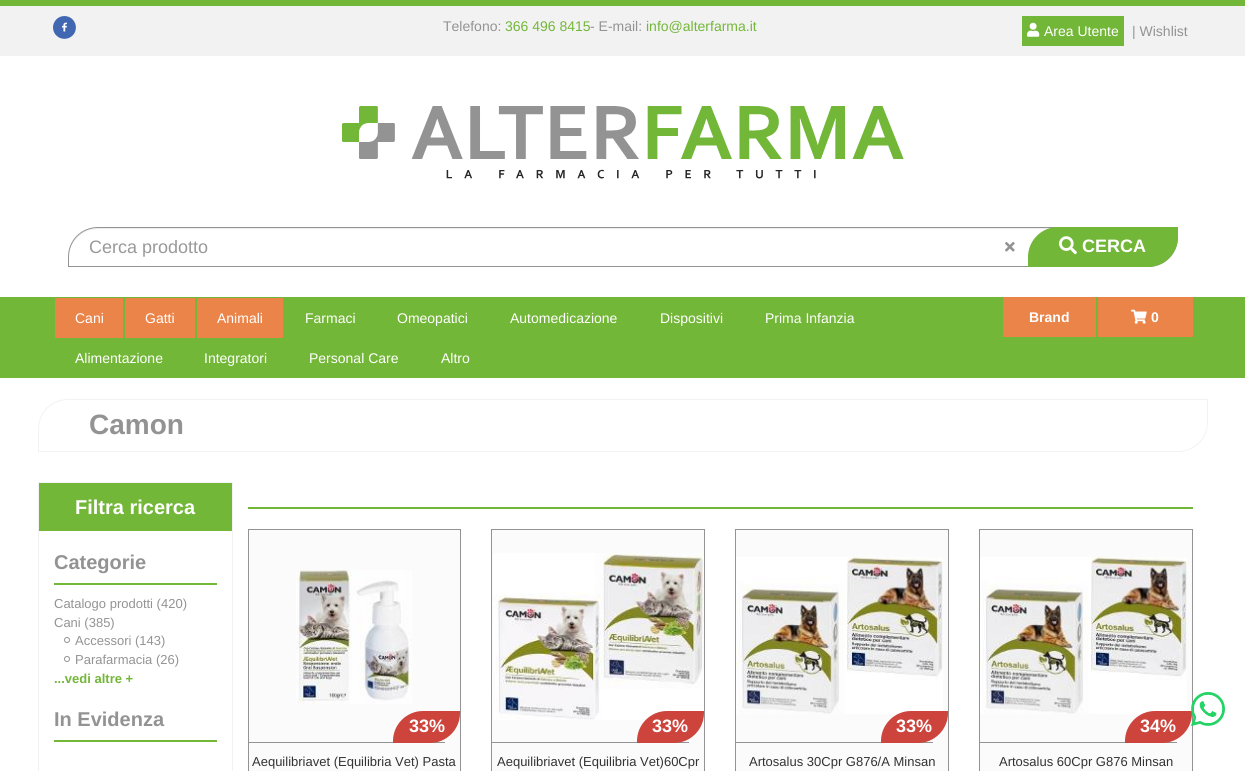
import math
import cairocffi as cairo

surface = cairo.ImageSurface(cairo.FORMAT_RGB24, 1245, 771)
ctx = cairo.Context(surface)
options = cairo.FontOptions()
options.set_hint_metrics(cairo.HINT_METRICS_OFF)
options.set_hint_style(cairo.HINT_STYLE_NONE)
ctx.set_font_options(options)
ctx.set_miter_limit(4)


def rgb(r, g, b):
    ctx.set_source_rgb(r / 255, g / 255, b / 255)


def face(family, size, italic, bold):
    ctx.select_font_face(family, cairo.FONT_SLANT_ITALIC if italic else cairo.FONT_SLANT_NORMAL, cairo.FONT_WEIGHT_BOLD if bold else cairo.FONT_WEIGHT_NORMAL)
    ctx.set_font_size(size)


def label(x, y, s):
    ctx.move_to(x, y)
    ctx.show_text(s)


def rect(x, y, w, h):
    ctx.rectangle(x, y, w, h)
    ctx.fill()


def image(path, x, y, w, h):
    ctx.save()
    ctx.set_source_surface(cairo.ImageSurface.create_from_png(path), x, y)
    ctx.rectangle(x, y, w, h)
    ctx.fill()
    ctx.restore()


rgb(255, 255, 255)
ctx.paint()
rgb(242, 242, 242)
rect(0, 6, 1245, 50)
rgb(115, 183, 56)
rect(0, 0, 1245, 6)
image('image0.png', 53, 16, 23, 23)
face('Liberation Sans', 14, 0, 0)
rgb(147, 147, 147)
label(443, 31, 'Telefono:')
rgb(115, 183, 56)
label(505, 31, '366 496 8415')
rgb(147, 147, 147)
label(590, 31, '- E-mail:')
rgb(115, 183, 56)
label(646, 31, 'info@alterfarma.it')
rect(1022, 16, 102, 30)
image('image1.png', 1027, 22, 13, 15)
rgb(255, 255, 255)
label(1044, 36, 'Area Utente')
rgb(147, 147, 147)
label(1132, 36, '| Wishlist')
image('image2.png', 342, 106, 562, 73)
rgb(236, 236, 236)
ctx.new_path()
ctx.move_to(98, 229)
ctx.line_to(1177, 229)
ctx.line_to(1177, 228)
ctx.line_to(98, 228)
ctx.curve_to(81, 228, 69, 242, 69, 258)
ctx.curve_to(69, 242, 82, 229, 98, 229)
ctx.close_path()
ctx.fill()
ctx.new_path()
ctx.move_to(98, 227.5)
ctx.line_to(1177.5, 227.5)
ctx.line_to(1177.5, 237)
ctx.curve_to(1177.5, 253.5, 1164.5, 266.5, 1148, 266.5)
ctx.line_to(68.5, 266.5)
ctx.line_to(68.5, 257)
ctx.curve_to(68.5, 240.5, 81.5, 227.5, 98, 227.5)
ctx.close_path()
rgb(147, 147, 147)
ctx.set_line_width(1)
ctx.stroke()
face('Liberation Sans', 18, 0, 0)
rgb(153, 153, 153)
label(89, 253, 'Cerca prodotto')
image('image3.png', 1005, 242, 10, 10)
rgb(115, 183, 56)
ctx.new_path()
ctx.move_to(1058, 227)
ctx.line_to(1178, 227)
ctx.line_to(1178, 237)
ctx.curve_to(1178, 253.5, 1164.5, 267, 1148, 267)
ctx.line_to(1028, 267)
ctx.line_to(1028, 257)
ctx.curve_to(1028, 240.5, 1041.5, 227, 1058, 227)
ctx.close_path()
ctx.fill()
image('image4.png', 1059, 236, 18, 19)
face('Liberation Sans', 18, 0, 1)
rgb(255, 255, 255)
label(1082, 252, 'CERCA')
rgb(115, 183, 56)
rect(0, 297, 1245, 81)
rgb(235, 132, 73)
rect(55, 298, 68, 40)
face('Liberation Sans', 14, 0, 0)
rgb(255, 255, 255)
label(75, 323, 'Cani')
rgb(235, 132, 73)
rect(125, 298, 70, 40)
rgb(255, 255, 255)
label(145, 323, 'Gatti')
rgb(235, 132, 73)
rect(197, 298, 86, 40)
rgb(255, 255, 255)
label(217, 323, 'Animali')
label(305, 323, 'Farmaci')
label(397, 323, 'Omeopatici')
label(510, 323, 'Automedicazione')
label(660, 323, 'Dispositivi')
label(765, 323, 'Prima Infanzia')
label(75, 363, 'Alimentazione')
label(204, 363, 'Integratori')
label(309, 363, 'Personal Care')
label(441, 363, 'Altro')
rgb(235, 132, 73)
rect(1003, 297, 93, 40)
face('Liberation Sans', 14, 0, 1)
rgb(255, 255, 255)
label(1029, 322, 'Brand')
rgb(235, 132, 73)
rect(1098, 297, 95, 40)
image('image5.png', 1131, 309, 16, 15)
rgb(255, 255, 255)
label(1151, 322, '0')
ctx.new_path()
ctx.move_to(68, 399.5)
ctx.line_to(1207.5, 399.5)
ctx.line_to(1207.5, 422)
ctx.curve_to(1207.5, 438.5, 1194.5, 451.5, 1178, 451.5)
ctx.line_to(38.5, 451.5)
ctx.line_to(38.5, 429)
ctx.curve_to(38.5, 412.5, 51.5, 399.5, 68, 399.5)
ctx.close_path()
rgb(242, 242, 242)
ctx.stroke()
face('Liberation Sans', 28, 0, 1)
rgb(147, 147, 147)
label(89, 434, 'Camon')
ctx.rectangle(38.5, 482.5, 194, 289)
rgb(242, 242, 242)
ctx.stroke()
rgb(115, 183, 56)
rect(39, 483, 193, 48)
face('Liberation Sans', 20, 0, 1)
rgb(255, 255, 255)
label(75, 514, 'Filtra ricerca')
rgb(115, 183, 56)
rect(54, 583, 163, 2)
rgb(147, 147, 147)
label(54, 569, 'Categorie')
face('Liberation Sans', 13, 0, 0)
label(54, 608, 'Catalogo prodotti (420)')
label(54, 627, 'Cani (385)')
ctx.new_path()
ctx.arc(67, 640, 2.5, 0, 2 * math.pi)
ctx.stroke()
label(75, 645, 'Accessori (143)')
ctx.new_path()
ctx.arc(67, 659, 2.5, 0, 2 * math.pi)
ctx.stroke()
label(75, 664, 'Parafarmacia (26)')
face('Liberation Sans', 13, 0, 1)
rgb(115, 183, 56)
label(54, 683, '...vedi altre +')
rect(54, 740, 163, 2)
face('Liberation Sans', 20, 0, 1)
rgb(147, 147, 147)
label(54, 726, 'In Evidenza')
rgb(115, 183, 56)
rect(248, 507, 945, 2)
rgb(251, 251, 251)
ctx.rectangle(248.5, 529.5, 212, 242)
ctx.fill_preserve()
rgb(147, 147, 147)
ctx.stroke()
rect(249, 742, 196, 1)
image('image6.png', 296, 570, 116, 134)
rgb(204, 68, 59)
ctx.new_path()
ctx.move_to(423, 711)
ctx.line_to(460, 711)
ctx.line_to(460, 713)
ctx.curve_to(460, 729.5, 446.5, 743, 430, 743)
ctx.line_to(393, 743)
ctx.line_to(393, 741)
ctx.curve_to(393, 724.5, 406.5, 711, 423, 711)
ctx.close_path()
ctx.fill()
face('Liberation Sans', 18, 0, 1)
rgb(255, 255, 255)
label(409, 732, '33%')
face('Liberation Sans', 13, 0, 0)
rgb(51, 51, 51)
label(252, 766, 'Aequilibriavet (Equilibria Vet) Pasta')
rgb(251, 251, 251)
ctx.rectangle(491.5, 529.5, 213, 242)
ctx.fill_preserve()
rgb(147, 147, 147)
ctx.stroke()
rect(492, 742, 197, 1)
image('image7.png', 493, 553, 211, 167)
rgb(204, 68, 59)
ctx.new_path()
ctx.move_to(667, 711)
ctx.line_to(704, 711)
ctx.line_to(704, 713)
ctx.curve_to(704, 729.5, 690.5, 743, 674, 743)
ctx.line_to(637, 743)
ctx.line_to(637, 741)
ctx.curve_to(637, 724.5, 650.5, 711, 667, 711)
ctx.close_path()
ctx.fill()
face('Liberation Sans', 18, 0, 1)
rgb(255, 255, 255)
label(652, 732, '33%')
face('Liberation Sans', 13, 0, 0)
rgb(51, 51, 51)
label(497, 766, 'Aequilibriavet (Equilibria Vet)60Cpr')
rgb(251, 251, 251)
ctx.rectangle(735.5, 529.5, 213, 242)
ctx.fill_preserve()
rgb(147, 147, 147)
ctx.stroke()
rect(736, 742, 197, 1)
image('image8.png', 736, 557, 207, 157)
rgb(204, 68, 59)
ctx.new_path()
ctx.move_to(911, 711)
ctx.line_to(948, 711)
ctx.line_to(948, 713)
ctx.curve_to(948, 729.5, 934.5, 743, 918, 743)
ctx.line_to(881, 743)
ctx.line_to(881, 741)
ctx.curve_to(881, 724.5, 894.5, 711, 911, 711)
ctx.close_path()
ctx.fill()
face('Liberation Sans', 18, 0, 1)
rgb(255, 255, 255)
label(896, 732, '33%')
face('Liberation Sans', 13, 0, 0)
rgb(51, 51, 51)
label(749, 766, 'Artosalus 30Cpr G876/A Minsan')
rgb(251, 251, 251)
ctx.rectangle(979.5, 529.5, 213, 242)
ctx.fill_preserve()
rgb(147, 147, 147)
ctx.stroke()
rect(980, 742, 197, 1)
image('image9.png', 980, 557, 207, 157)
rgb(204, 68, 59)
ctx.new_path()
ctx.move_to(1155, 711)
ctx.line_to(1192, 711)
ctx.line_to(1192, 713)
ctx.curve_to(1192, 729.5, 1178.5, 743, 1162, 743)
ctx.line_to(1125, 743)
ctx.line_to(1125, 741)
ctx.curve_to(1125, 724.5, 1138.5, 711, 1155, 711)
ctx.close_path()
ctx.fill()
face('Liberation Sans', 18, 0, 1)
rgb(255, 255, 255)
label(1140, 732, '34%')
face('Liberation Sans', 13, 0, 0)
rgb(51, 51, 51)
label(999, 766, 'Artosalus 60Cpr G876 Minsan')
image('image10.png', 1191, 692, 34, 34)
surface.write_to_png('render.png')
